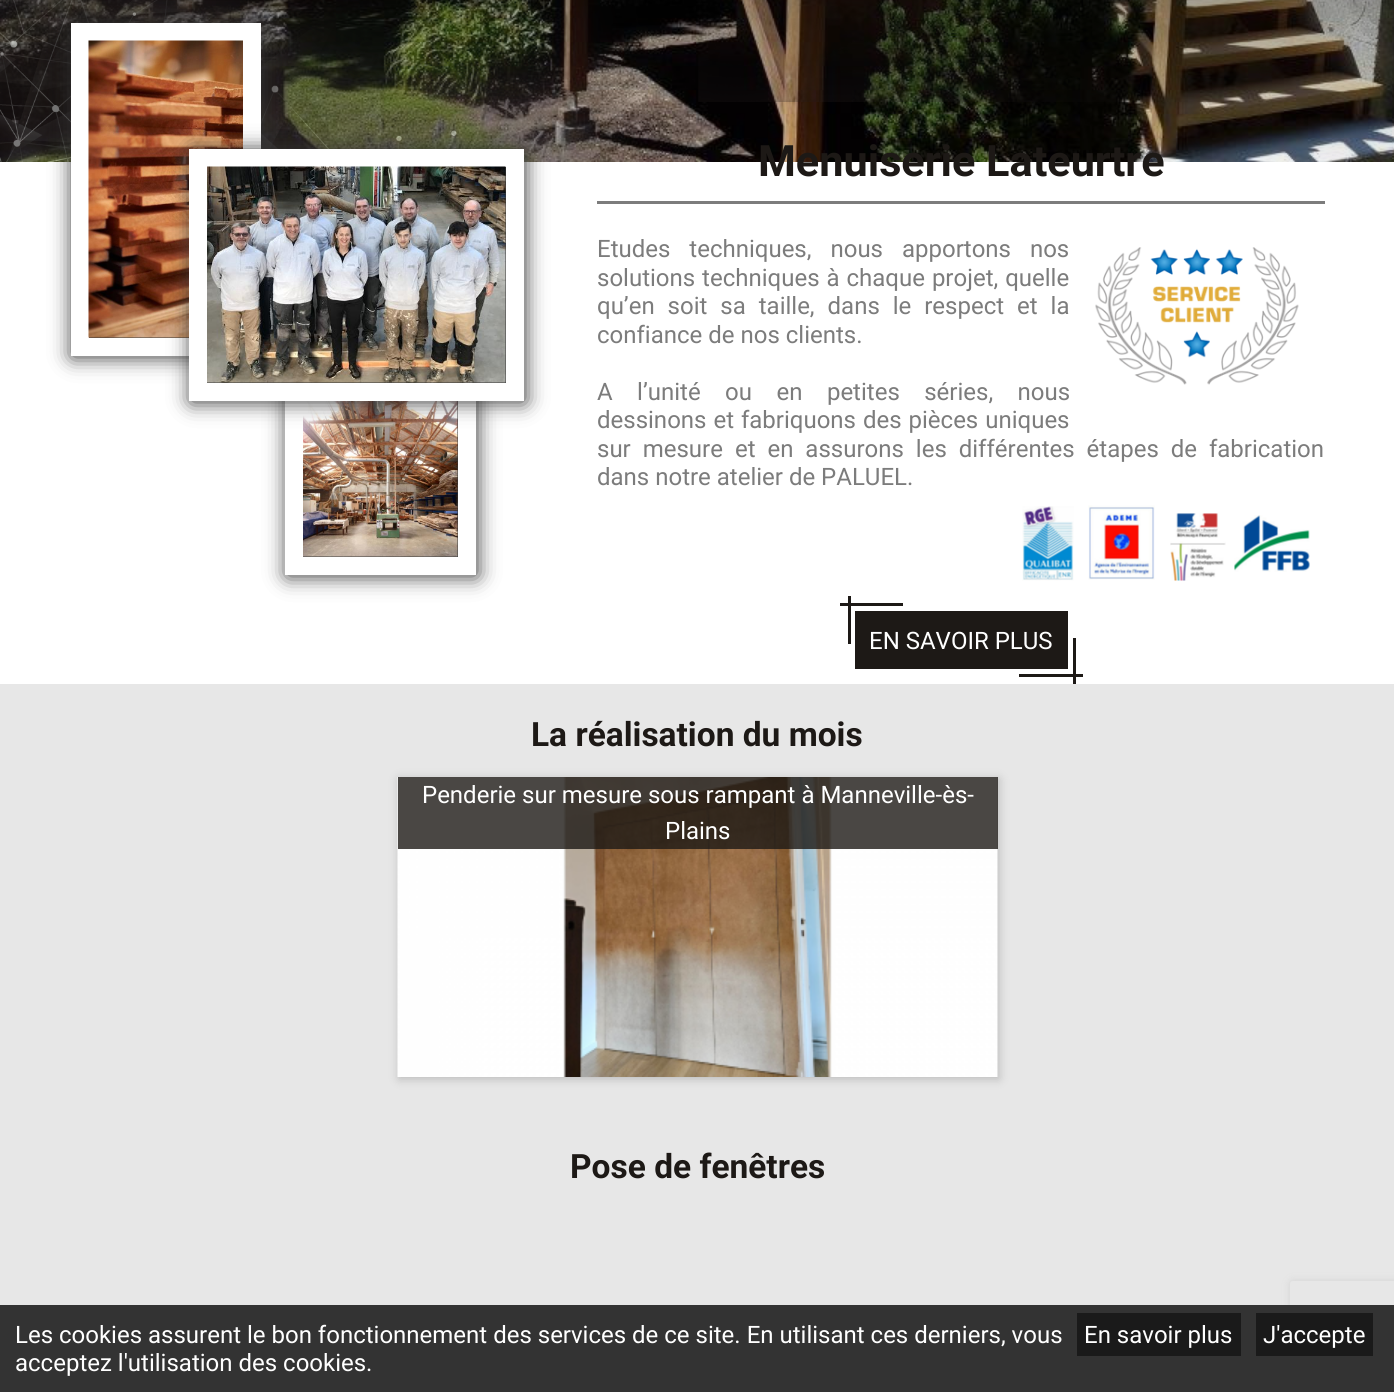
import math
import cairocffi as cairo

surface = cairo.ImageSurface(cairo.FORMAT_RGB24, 1394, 1392)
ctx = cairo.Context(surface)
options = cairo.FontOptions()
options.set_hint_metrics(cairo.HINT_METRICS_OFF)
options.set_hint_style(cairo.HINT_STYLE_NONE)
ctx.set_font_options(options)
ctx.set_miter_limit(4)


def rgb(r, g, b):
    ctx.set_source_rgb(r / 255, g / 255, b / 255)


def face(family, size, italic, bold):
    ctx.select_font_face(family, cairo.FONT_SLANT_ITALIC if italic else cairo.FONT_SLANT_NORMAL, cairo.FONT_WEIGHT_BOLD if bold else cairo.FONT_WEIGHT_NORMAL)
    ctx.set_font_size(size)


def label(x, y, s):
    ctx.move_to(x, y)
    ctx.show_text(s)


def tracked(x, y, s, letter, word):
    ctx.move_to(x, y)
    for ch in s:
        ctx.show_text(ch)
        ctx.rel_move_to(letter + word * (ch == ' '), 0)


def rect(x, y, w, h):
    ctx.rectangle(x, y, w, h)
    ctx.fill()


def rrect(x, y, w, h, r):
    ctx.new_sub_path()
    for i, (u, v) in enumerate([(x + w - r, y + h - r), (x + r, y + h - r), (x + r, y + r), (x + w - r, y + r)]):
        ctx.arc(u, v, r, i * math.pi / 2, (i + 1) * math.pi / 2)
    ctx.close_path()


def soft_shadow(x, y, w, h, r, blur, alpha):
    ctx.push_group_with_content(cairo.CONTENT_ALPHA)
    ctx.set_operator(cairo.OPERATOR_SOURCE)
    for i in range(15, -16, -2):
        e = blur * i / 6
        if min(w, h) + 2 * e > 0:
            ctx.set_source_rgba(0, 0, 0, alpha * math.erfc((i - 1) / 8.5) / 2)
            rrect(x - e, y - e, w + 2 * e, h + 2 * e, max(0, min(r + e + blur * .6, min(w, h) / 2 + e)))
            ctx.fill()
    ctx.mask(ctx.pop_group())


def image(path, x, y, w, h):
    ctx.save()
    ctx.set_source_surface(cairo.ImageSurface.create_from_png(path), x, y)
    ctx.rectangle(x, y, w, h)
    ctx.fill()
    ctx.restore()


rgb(255, 255, 255)
ctx.paint()
image('image0.png', 0, 0, 1394, 162)
image('image1.png', 0, 0, 1394, 162)
image('image2.png', 0, 0, 1382, 162)
rgb(51, 51, 51)
soft_shadow(72, 24, 191, 333, 0, 10.5, 1)
ctx.rectangle(80, 32, 172, 315)
rgb(255, 255, 255)
ctx.set_line_width(18)
ctx.stroke()
image('image3.png', 88, 40, 155, 298)
rgb(51, 51, 51)
soft_shadow(287, 384, 190, 192, 0, 10.5, 1)
ctx.rectangle(294, 392, 173, 174)
rgb(255, 255, 255)
ctx.stroke()
image('image5.png', 303, 401, 155, 156)
rgb(51, 51, 51)
soft_shadow(191, 150, 334, 252, 0, 10.5, 1)
ctx.rectangle(198, 158, 317, 234)
rgb(255, 255, 255)
ctx.stroke()
image('image4.png', 207, 166, 299, 217)
rgb(124, 124, 124)
rect(597, 201, 728, 3)
face('Roboto', 43.25, 0, 1)
rgb(29, 25, 22)
label(758, 176, 'Menuiserie Lateurtre')
face('Roboto', 24, 0, 0)
rgb(124, 124, 124)
tracked(597, 257, 'Etudes techniques, nous apportons nos', 0, 13)
tracked(597, 286, 'solutions techniques à chaque projet, quelle', 0, 1)
tracked(597, 314, 'qu’en soit sa taille, dans le respect et la', 0, 7)
label(597, 343, 'confiance de nos clients.')
image('image6.png', 1095, 247, 204, 138)
tracked(597, 400, 'A l’unité ou en petites séries, nous', 0, 18.5)
tracked(597, 428, 'dessinons et fabriquons des pièces uniques', 0, 1)
tracked(597, 457, 'sur mesure et en assurons les différentes étapes de fabrication', 0, 6)
label(597, 485, 'dans notre atelier de PALUEL.')
image('image7.png', 1022, 506, 52, 75)
image('image8.png', 1088, 505, 67, 75)
image('image9.png', 1170, 513, 56, 68)
image('image10.png', 1234, 515, 76, 57)
rgb(29, 25, 22)
rect(855, 611, 213, 58)
rect(848, 596, 3, 48)
rect(840, 603, 63, 3)
rgb(255, 255, 255)
label(869, 649, 'EN SAVOIR PLUS')
rgb(29, 25, 22)
rect(1073, 638, 3, 46)
rect(1019, 674, 64, 3)
rgb(231, 231, 231)
rect(0, 684, 1394, 432)
face('Roboto', 33.5, 0, 1)
rgb(29, 25, 22)
label(531, 746, 'La réalisation du mois')
rgb(0, 0, 0)
soft_shadow(399, 779, 600, 300, 0, 5, 0.2)
image('image11.png', 397, 777, 601, 300)
ctx.set_source_rgba(0.114, 0.098, 0.086, 0.8)
rect(398, 777, 600, 72)
face('Roboto', 24, 0, 0)
rgb(255, 255, 255)
label(422, 803, 'Penderie sur mesure sous rampant à Manneville-ès-')
label(665, 839, 'Plains')
rgb(231, 231, 231)
rect(0, 1116, 1394, 189)
face('Roboto', 33.5, 0, 1)
rgb(29, 25, 22)
label(570, 1178, 'Pose de fenêtres')
ctx.save()
ctx.set_fill_rule(cairo.FILL_RULE_EVEN_ODD)
ctx.new_path()
ctx.move_to(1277, 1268)
ctx.line_to(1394, 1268)
ctx.line_to(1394, 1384)
ctx.line_to(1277, 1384)
ctx.close_path()
ctx.move_to(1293, 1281)
ctx.line_to(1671, 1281)
ctx.curve_to(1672.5, 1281, 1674, 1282.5, 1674, 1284)
ctx.line_to(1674, 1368)
ctx.curve_to(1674, 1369.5, 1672.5, 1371, 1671, 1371)
ctx.line_to(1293, 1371)
ctx.curve_to(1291.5, 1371, 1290, 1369.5, 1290, 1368)
ctx.line_to(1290, 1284)
ctx.curve_to(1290, 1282.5, 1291.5, 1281, 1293, 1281)
ctx.close_path()
ctx.clip()
rgb(210, 210, 210)
soft_shadow(1290, 1281, 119, 90, 3, 4, 1)
ctx.restore()
rgb(51, 51, 51)
rect(0, 1305, 1394, 87)
face('Roboto', 24, 0, 0)
rgb(255, 255, 255)
label(15, 1343, 'Les cookies assurent le bon fonctionnement des services de ce site. En utilisant ces derniers, vous')
rgb(26, 26, 26)
rect(1077, 1313, 164, 43)
rgb(255, 255, 255)
label(1084, 1343, 'En savoir plus')
rgb(26, 26, 26)
rect(1256, 1313, 117, 43)
rgb(255, 255, 255)
label(1263, 1343, 'J\'accepte')
label(15, 1371, 'acceptez l\'utilisation des cookies.')
surface.write_to_png('render.png')
